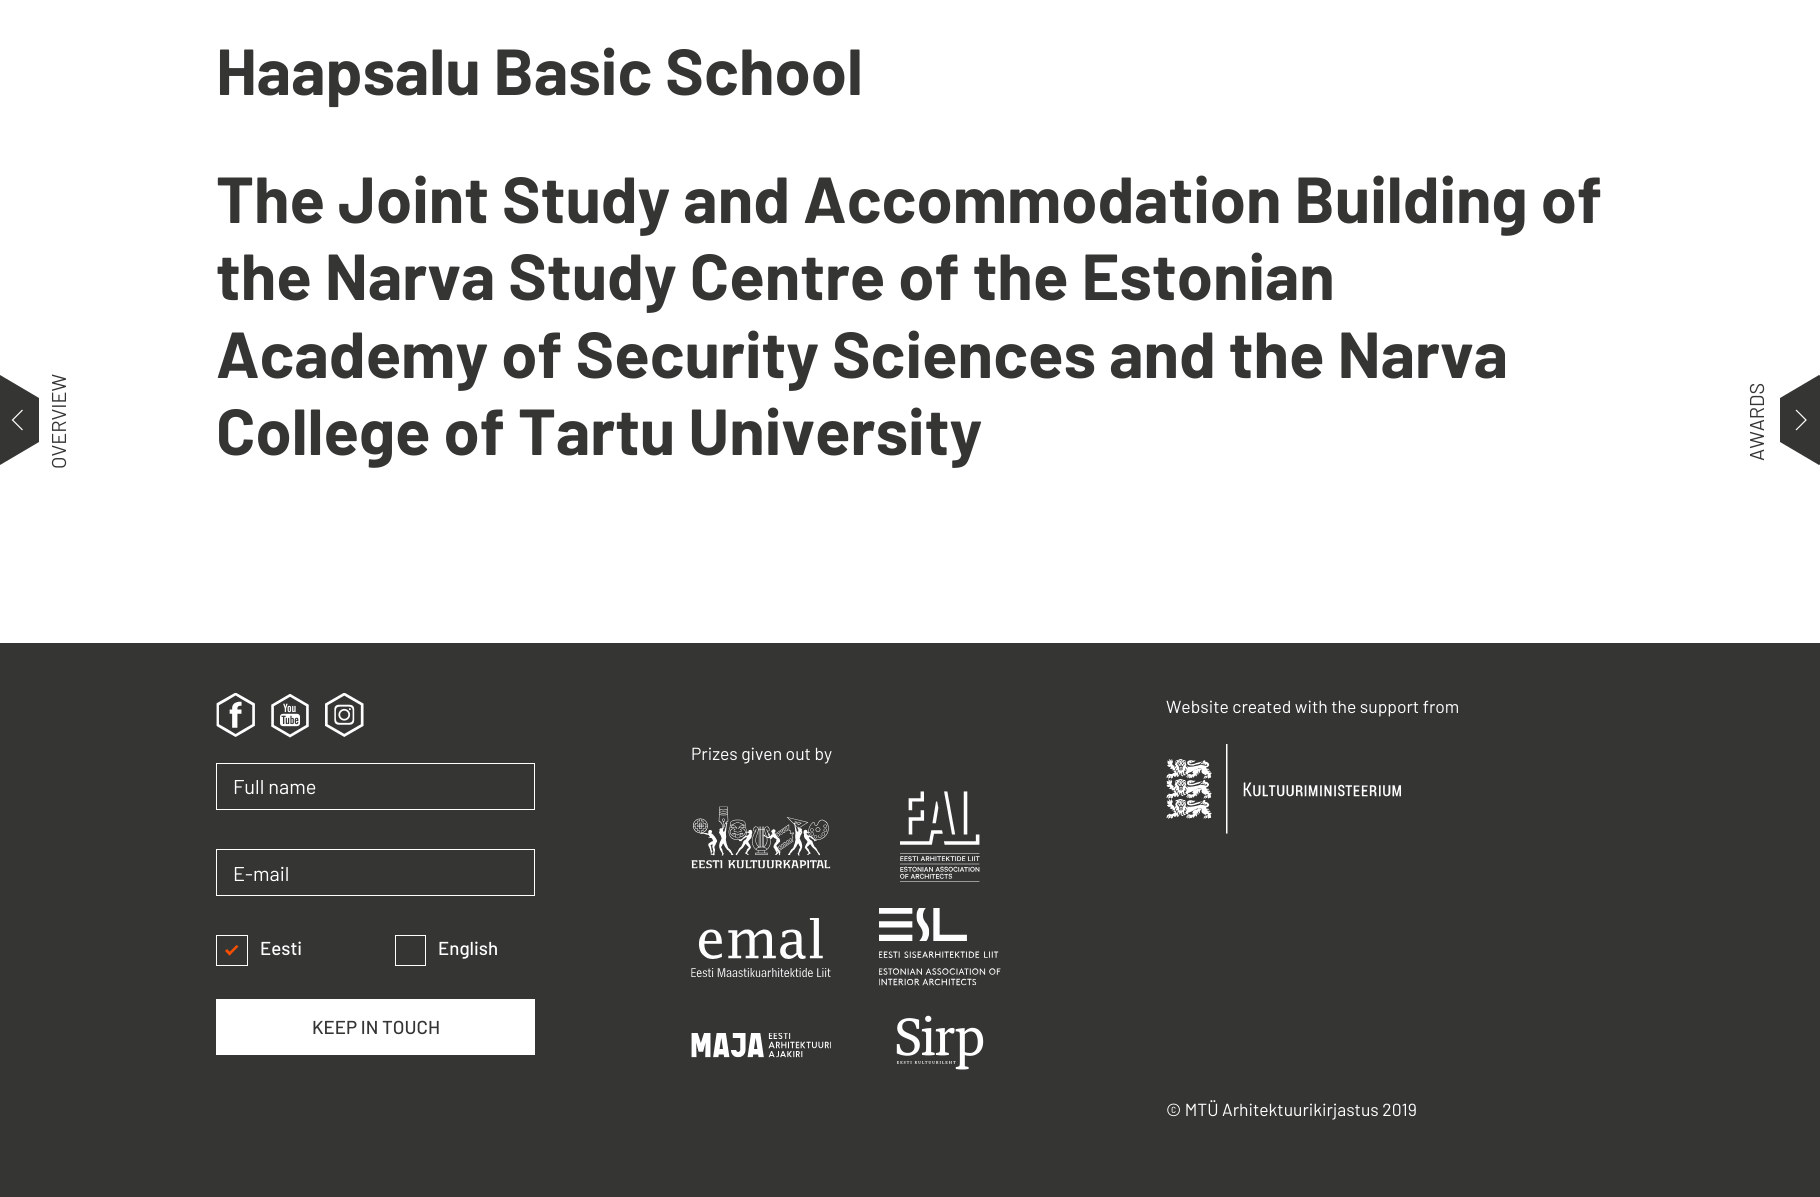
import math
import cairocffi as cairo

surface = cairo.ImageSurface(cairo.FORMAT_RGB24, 1820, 1197)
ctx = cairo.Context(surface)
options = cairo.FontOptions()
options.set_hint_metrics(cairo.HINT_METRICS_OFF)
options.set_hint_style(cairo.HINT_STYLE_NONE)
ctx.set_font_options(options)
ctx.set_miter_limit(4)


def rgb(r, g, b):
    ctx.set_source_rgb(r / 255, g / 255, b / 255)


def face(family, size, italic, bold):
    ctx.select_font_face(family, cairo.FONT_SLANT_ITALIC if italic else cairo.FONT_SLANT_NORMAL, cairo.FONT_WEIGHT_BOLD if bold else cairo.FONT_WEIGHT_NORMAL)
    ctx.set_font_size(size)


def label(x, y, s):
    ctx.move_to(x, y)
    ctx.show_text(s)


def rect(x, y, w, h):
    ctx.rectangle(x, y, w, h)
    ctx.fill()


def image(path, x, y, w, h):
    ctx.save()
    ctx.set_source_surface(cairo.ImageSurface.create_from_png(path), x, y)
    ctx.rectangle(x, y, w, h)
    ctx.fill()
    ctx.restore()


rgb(255, 255, 255)
ctx.paint()
rgb(53, 53, 52)
ctx.set_fill_rule(cairo.FILL_RULE_EVEN_ODD)
ctx.new_path()
ctx.move_to(0, 375)
ctx.line_to(39, 398)
ctx.line_to(39, 442)
ctx.line_to(0, 465)
ctx.line_to(-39, 442)
ctx.line_to(-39, 398)
ctx.line_to(-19, 386)
ctx.close_path()
ctx.fill()
face('Barlow', 20, 0, 0)
ctx.save()
ctx.translate(66, 469)
ctx.rotate(-90 * math.pi / 180)
label(0, 0, 'OVERVIEW')
ctx.restore()
ctx.new_path()
ctx.move_to(22.5, 410)
ctx.line_to(12.5, 420)
ctx.line_to(22.5, 430)
rgb(255, 255, 255)
ctx.set_line_width(1.2)
ctx.stroke()
face('Barlow', 65, 0, 1)
rgb(53, 53, 52)
label(216, 95, 'Haapsalu Basic School')
label(216, 223, 'The Joint Study and Accommodation Building of')
label(216, 300, 'the Narva Study Centre of the Estonian')
label(216, 378, 'Academy of Security Sciences and the Narva')
label(216, 455, 'College of Tartu University')
face('Barlow', 20, 0, 0)
ctx.save()
ctx.translate(1764, 461)
ctx.rotate(-90 * math.pi / 180)
label(0, 0, 'AWARDS')
ctx.restore()
ctx.new_path()
ctx.move_to(1819, 375)
ctx.line_to(1780, 398)
ctx.line_to(1780, 442)
ctx.line_to(1819, 465)
ctx.line_to(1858, 442)
ctx.line_to(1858, 398)
ctx.line_to(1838, 386)
ctx.close_path()
ctx.fill()
ctx.new_path()
ctx.move_to(1796, 410)
ctx.line_to(1806, 420)
ctx.line_to(1796, 430)
rgb(255, 255, 255)
ctx.stroke()
rgb(53, 53, 52)
rect(0, 643, 1820, 554)
face('Barlow', 17.5, 0, 0)
rgb(255, 255, 255)
label(691, 760, 'Prizes given out by')
image('image0.png', 691, 806, 140, 63)
image('image1.png', 900, 791, 80, 91)
image('image2.png', 691, 918, 140, 59)
image('image3.png', 879, 908, 122, 78)
image('image4.png', 691, 1033, 140, 25)
image('image5.png', 896, 1015, 88, 55)
label(1166, 713, 'Website created with the support from')
image('image6.png', 1166, 744, 235, 90)
label(1166, 1116, '© MTÜ Arhitektuurikirjastus 2019')
image('image7.png', 216, 693, 39, 44)
image('image8.png', 271, 694, 38, 44)
image('image9.png', 325, 693, 39, 44)
ctx.rectangle(216.5, 763.5, 318, 46)
ctx.set_line_width(1)
ctx.stroke()
face('Barlow', 20, 0, 0)
label(233, 794, 'Full name')
ctx.rectangle(216.5, 849.5, 318, 46)
ctx.stroke()
label(233, 881, 'E-mail')
ctx.rectangle(216.5, 935.5, 31, 30)
ctx.stroke()
rgb(251, 78, 0)
ctx.set_fill_rule(cairo.FILL_RULE_WINDING)
ctx.new_path()
ctx.move_to(236.5, 945)
ctx.line_to(238.5, 946.5)
ctx.line_to(229.5, 955.5)
ctx.line_to(228, 953.5)
ctx.close_path()
ctx.fill()
ctx.new_path()
ctx.move_to(227, 949)
ctx.line_to(231.5, 953.5)
ctx.line_to(229.5, 955.5)
ctx.line_to(225, 951)
ctx.close_path()
ctx.fill()
face('Barlow Medium', 18.75, 0, 0)
rgb(255, 255, 255)
label(260, 955, 'Eesti')
ctx.rectangle(395.5, 935.5, 30, 30)
ctx.stroke()
label(438, 955, 'English')
rect(216, 999, 319, 56)
rgb(53, 53, 52)
label(312, 1034, 'KEEP IN TOUCH')
surface.write_to_png('render.png')
